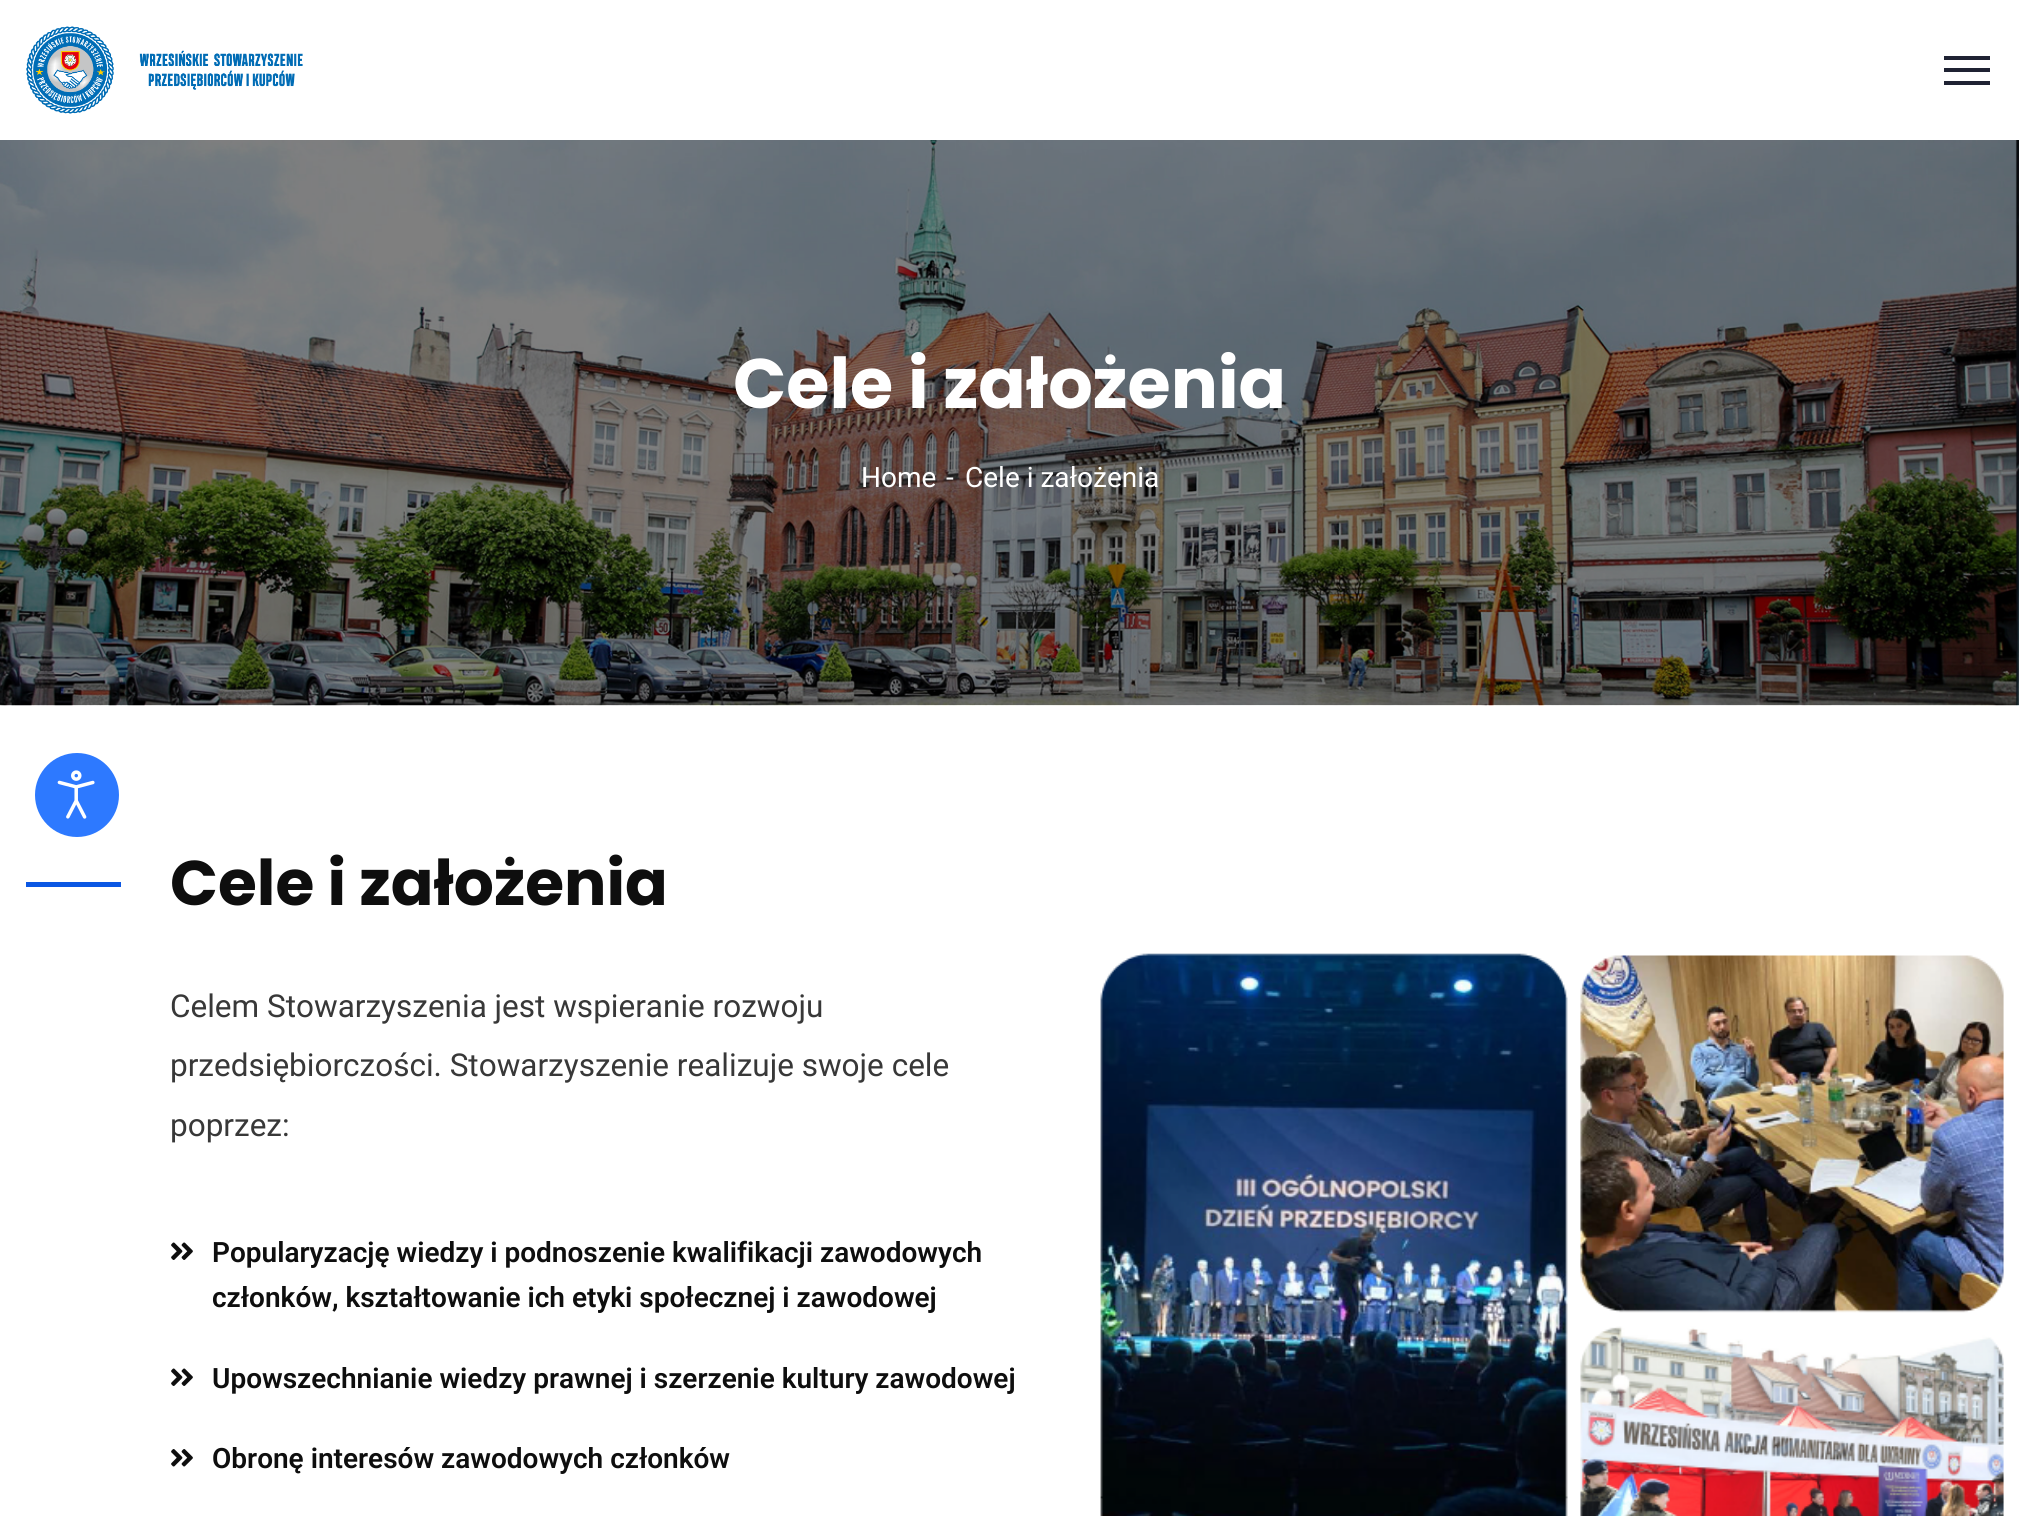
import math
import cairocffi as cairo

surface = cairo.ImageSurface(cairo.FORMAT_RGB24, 2019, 1516)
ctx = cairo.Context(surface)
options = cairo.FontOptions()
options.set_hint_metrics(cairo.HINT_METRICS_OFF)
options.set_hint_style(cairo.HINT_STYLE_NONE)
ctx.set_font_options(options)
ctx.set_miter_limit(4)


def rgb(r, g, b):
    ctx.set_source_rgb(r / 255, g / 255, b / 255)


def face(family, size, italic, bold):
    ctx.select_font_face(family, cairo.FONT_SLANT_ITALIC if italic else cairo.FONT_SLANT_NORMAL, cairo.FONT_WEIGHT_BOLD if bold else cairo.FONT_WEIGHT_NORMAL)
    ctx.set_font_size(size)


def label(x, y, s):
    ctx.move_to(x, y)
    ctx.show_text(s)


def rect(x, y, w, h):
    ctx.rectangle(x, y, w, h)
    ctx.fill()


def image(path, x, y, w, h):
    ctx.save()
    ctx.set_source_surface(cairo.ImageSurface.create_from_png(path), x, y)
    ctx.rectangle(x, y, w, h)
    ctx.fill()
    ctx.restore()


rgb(255, 255, 255)
ctx.paint()
rgb(45, 121, 255)
ctx.arc(77, 795, 42, 0, 2 * math.pi)
ctx.fill()
image('image0.png', 57, 770, 38, 49)
image('image1.png', 26, 26, 277, 88)
rgb(31, 34, 51)
rect(1944, 56, 46, 4)
rect(1944, 68, 46, 4)
rect(1944, 81, 46, 4)
image('image2.png', 0, 140, 2019, 566)
face('Poppins', 70, 0, 1)
rgb(255, 255, 255)
label(733, 408, 'Cele i założenia')
face('Roboto', 28, 0, 0)
label(861, 487, 'Home')
label(946, 487, '-')
label(965, 487, 'Cele i założenia')
rgb(11, 87, 227)
rect(26, 882, 95, 5)
face('Poppins', 63, 0, 1)
rgb(14, 14, 14)
label(170, 905, 'Cele i założenia')
face('Roboto', 31.5, 0, 0)
rgb(56, 56, 56)
label(170, 1017, 'Celem Stowarzyszenia jest wspieranie rozwoju')
label(170, 1076, 'przedsiębiorczości. Stowarzyszenie realizuje swoje cele')
label(170, 1136, 'poprzez:')
image('image3.png', 171, 1242, 22, 18)
face('Roboto SemiBold', 28, 0, 0)
rgb(14, 14, 14)
label(212, 1262, 'Popularyzację wiedzy i podnoszenie kwalifikacji zawodowych')
label(212, 1307, 'członków, kształtowanie ich etyki społecznej i zawodowej')
image('image3.png', 171, 1368, 22, 18)
label(212, 1388, 'Upowszechnianie wiedzy prawnej i szerzenie kultury zawodowej')
image('image4.png', 171, 1449, 22, 18)
label(212, 1468, 'Obronę interesów zawodowych członków')
image('image5.png', 1100, 953, 904, 563)
surface.write_to_png('render.png')
